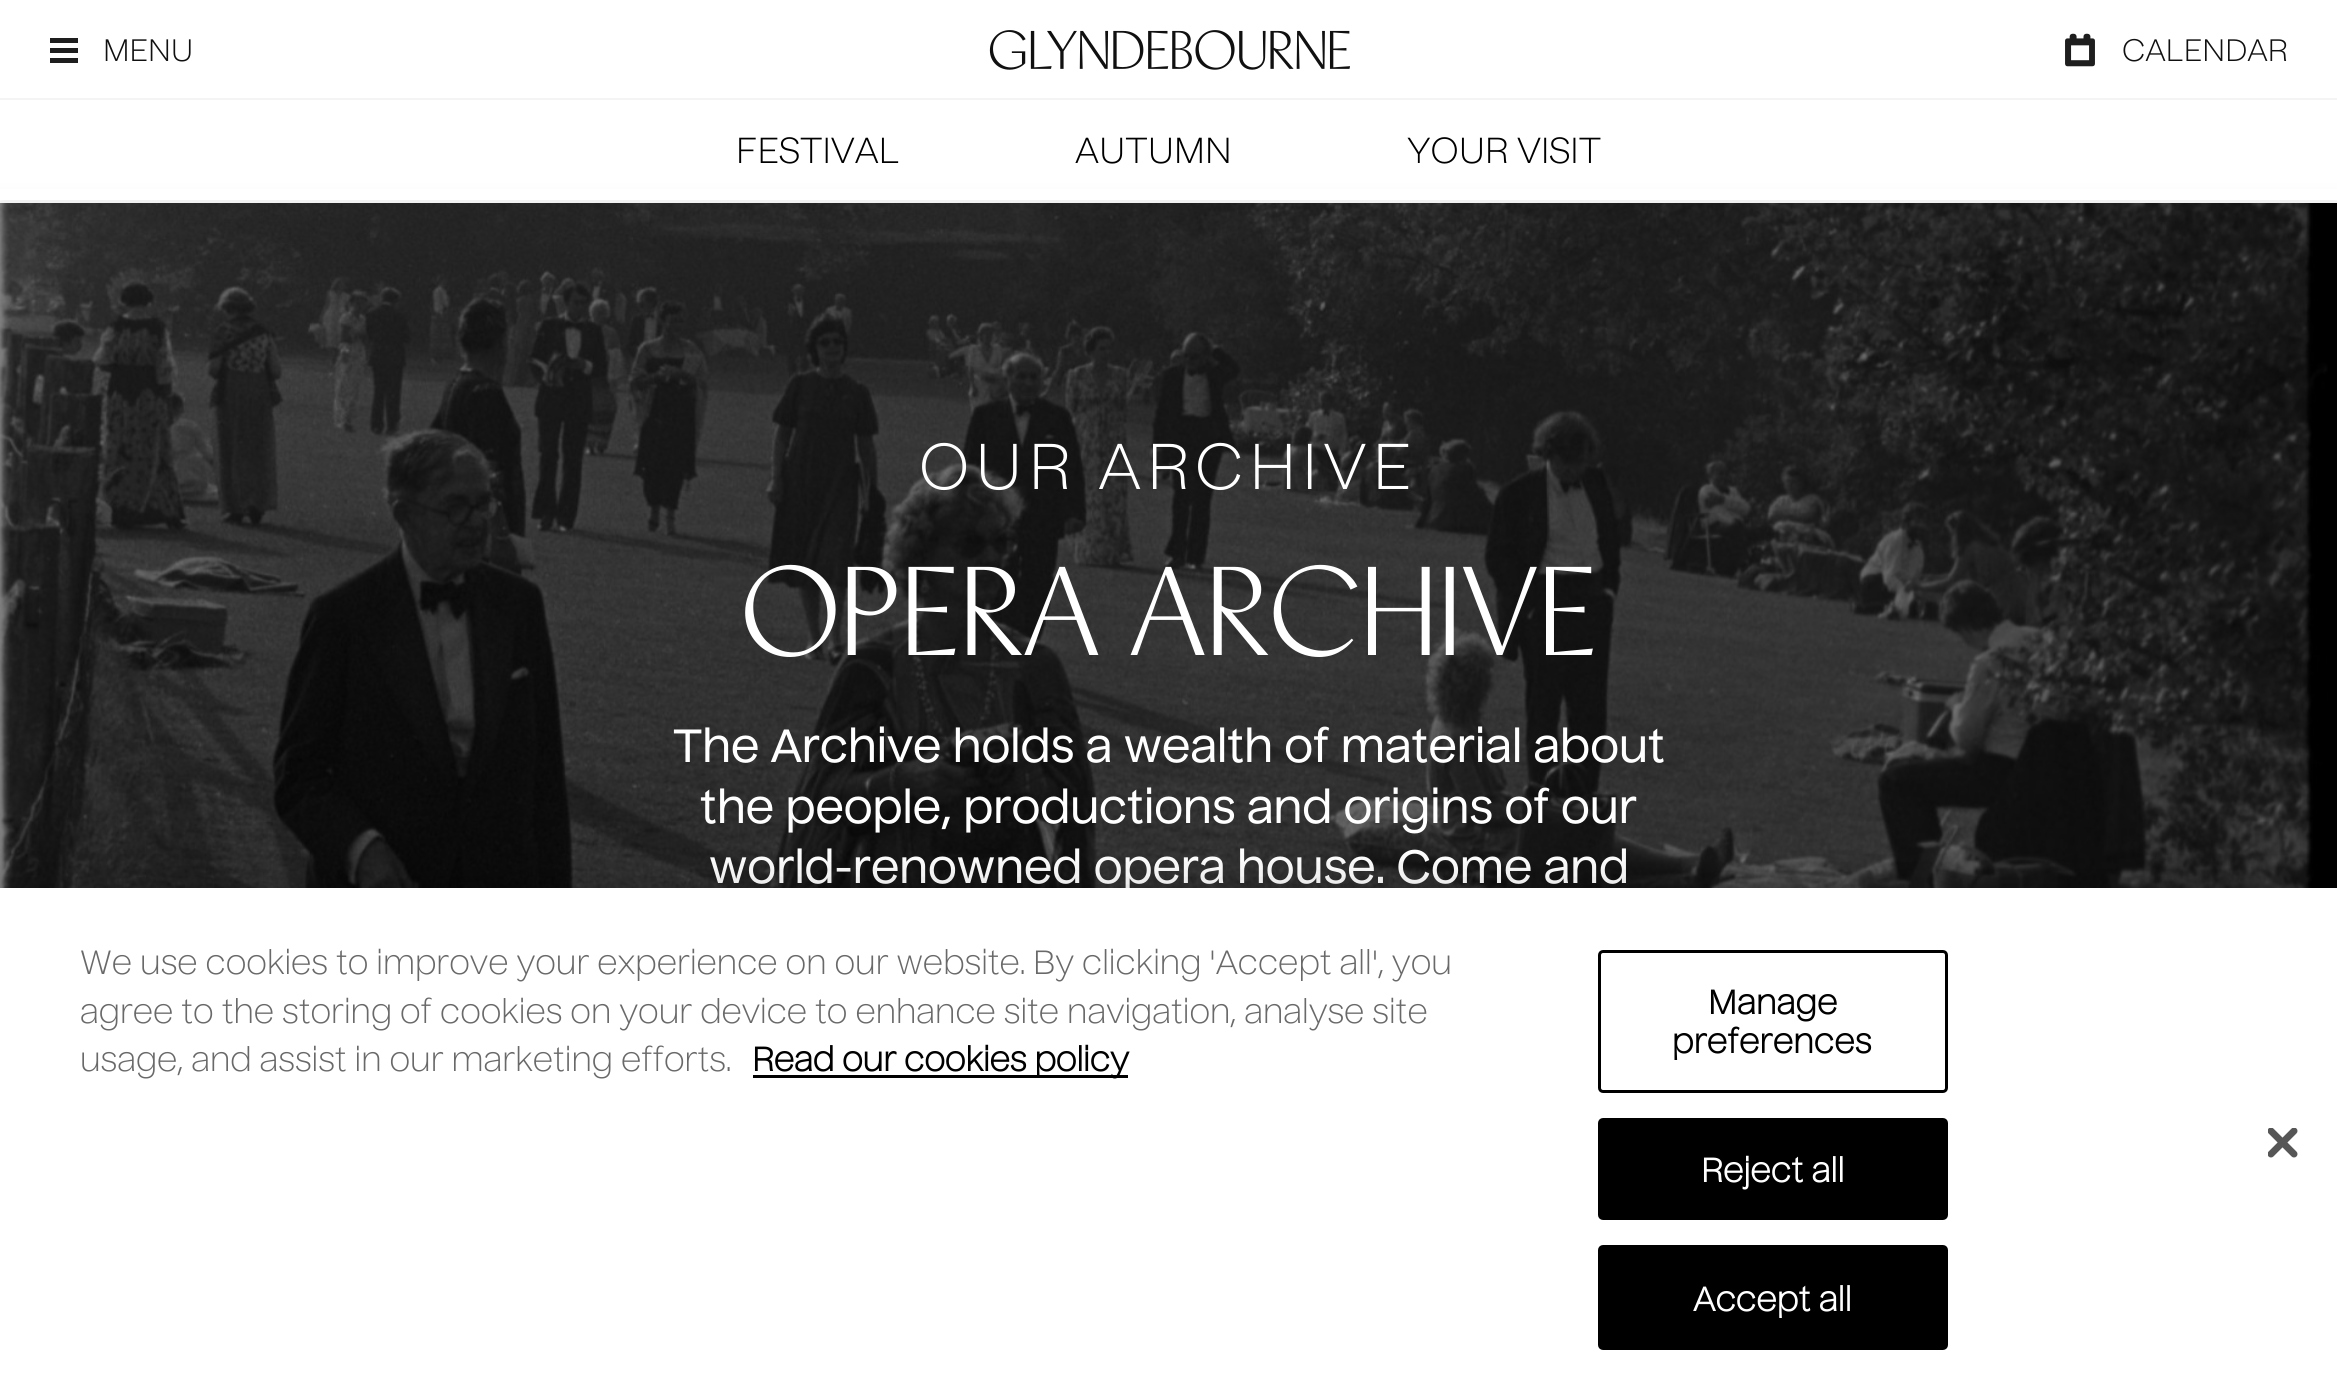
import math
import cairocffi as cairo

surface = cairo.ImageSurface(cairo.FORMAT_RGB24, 2337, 1399)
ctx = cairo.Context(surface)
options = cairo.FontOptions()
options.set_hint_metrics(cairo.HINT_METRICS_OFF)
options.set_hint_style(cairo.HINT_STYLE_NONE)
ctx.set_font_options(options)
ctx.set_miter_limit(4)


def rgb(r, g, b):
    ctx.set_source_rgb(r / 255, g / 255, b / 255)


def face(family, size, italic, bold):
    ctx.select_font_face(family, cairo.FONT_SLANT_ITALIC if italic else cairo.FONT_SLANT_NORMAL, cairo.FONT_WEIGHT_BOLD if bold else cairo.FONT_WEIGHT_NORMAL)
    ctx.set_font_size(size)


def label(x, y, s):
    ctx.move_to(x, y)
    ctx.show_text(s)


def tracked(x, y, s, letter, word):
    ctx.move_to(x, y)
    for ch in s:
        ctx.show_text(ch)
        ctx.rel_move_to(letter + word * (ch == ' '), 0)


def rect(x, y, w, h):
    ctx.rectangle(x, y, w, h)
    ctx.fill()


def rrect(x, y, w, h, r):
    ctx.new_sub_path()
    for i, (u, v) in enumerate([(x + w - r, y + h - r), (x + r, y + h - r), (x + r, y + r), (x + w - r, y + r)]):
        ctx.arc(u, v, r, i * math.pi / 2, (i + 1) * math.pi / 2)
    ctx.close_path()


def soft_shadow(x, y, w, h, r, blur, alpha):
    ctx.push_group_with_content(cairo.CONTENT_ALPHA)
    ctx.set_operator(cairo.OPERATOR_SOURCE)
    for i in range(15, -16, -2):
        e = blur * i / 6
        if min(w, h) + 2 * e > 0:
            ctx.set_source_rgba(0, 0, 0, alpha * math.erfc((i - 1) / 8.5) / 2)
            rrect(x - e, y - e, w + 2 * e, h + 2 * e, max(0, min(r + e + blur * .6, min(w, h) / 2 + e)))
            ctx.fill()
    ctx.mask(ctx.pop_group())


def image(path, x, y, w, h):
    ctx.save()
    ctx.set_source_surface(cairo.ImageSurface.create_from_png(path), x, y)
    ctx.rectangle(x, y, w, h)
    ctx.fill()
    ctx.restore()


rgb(255, 255, 255)
ctx.paint()
rgb(244, 244, 244)
rect(0, 98, 2337, 2)
rgb(30, 30, 30)
rect(50, 48, 28, 5)
rect(50, 38, 28, 5)
rect(50, 58, 28, 5)
face('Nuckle', 30, 0, 0)
rgb(16, 16, 16)
label(103, 61, 'MENU')
image('image0.png', 989, 30, 361, 40)
image('image1.png', 2065, 33, 30, 34)
label(2122, 61, 'CALENDAR')
rgb(204, 204, 204)
soft_shadow(0, 210, 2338, 1125, 0, 12.5, 1)
rgb(255, 255, 255)
rect(0, 189, 2337, 11)
face('Nuckle', 35, 0, 0)
rgb(0, 0, 0)
label(736, 163, 'FESTIVAL')
label(1075, 163, 'AUTUMN')
label(1407, 163, 'YOUR VISIT')
rect(2328, 203, 9, 685)
image('image2.png', 0, 203, 2328, 685)
ctx.set_source_rgba(0, 0, 0, 0.5)
rect(0, 203, 2328, 685)
face('Nuckle', 62.5, 0, 0)
rgb(255, 255, 255)
tracked(919, 489, 'OUR ARCHIVE', 6.25, 0)
face('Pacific', 125, 0, 0)
label(741, 655, 'OPERA ARCHIVE')
face('Nuckle Medium', 45, 0, 0)
label(673, 762, 'The Archive holds a wealth of material about')
label(700, 823, 'the people, productions and origins of our')
label(709, 883, 'world-renowned opera house. Come and')
rgb(0, 0, 0)
soft_shadow(0, 888, 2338, 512, 0, 22.5, 0.2)
rgb(255, 255, 255)
rect(0, 888, 2337, 511)
face('Nuckle', 32.5, 0, 0)
rgb(105, 105, 105)
label(80, 974, 'We use cookies to improve your experience on our website. By clicking \'Accept all\', you')
label(80, 1023, 'agree to the storing of cookies on your device to enhance site navigation, analyse site')
label(80, 1071, 'usage, and assist in our marketing efforts.')
rgb(0, 0, 0)
rect(753, 1075, 375, 3)
face('Nuckle', 32.5, 0, 1)
label(752, 1071, 'Read our cookies policy')
rrect(1599.5, 951.5, 347, 140, 3.5)
ctx.set_line_width(3)
ctx.stroke()
tracked(1708, 1014, 'Manage', 0.25, 0)
tracked(1672, 1053, 'preferences', 0.25, 0)
rrect(1599.5, 1119.5, 347, 99, 3.5)
ctx.fill_preserve()
ctx.stroke()
rgb(255, 255, 255)
tracked(1701, 1182, 'Reject all', 0.25, 0)
rgb(0, 0, 0)
rrect(1599.5, 1246.5, 347, 102, 3.5)
ctx.fill_preserve()
ctx.stroke()
rgb(255, 255, 255)
tracked(1693, 1311, 'Accept all', 0.25, 0)
image('image3.png', 2268, 1128, 30, 30)
surface.write_to_png('render.png')
